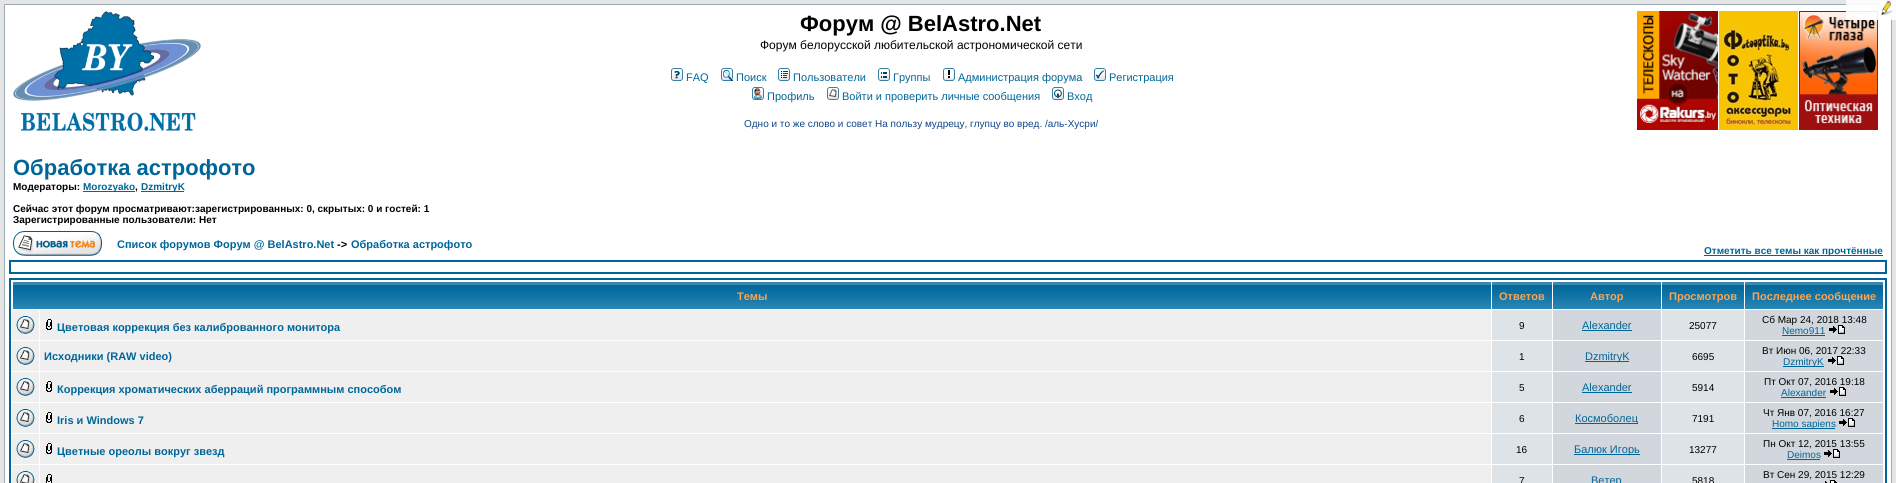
import math
import cairocffi as cairo

surface = cairo.ImageSurface(cairo.FORMAT_RGB24, 1896, 483)
ctx = cairo.Context(surface)
options = cairo.FontOptions()
options.set_hint_metrics(cairo.HINT_METRICS_OFF)
options.set_hint_style(cairo.HINT_STYLE_NONE)
ctx.set_font_options(options)
ctx.set_miter_limit(4)


def rgb(r, g, b):
    ctx.set_source_rgb(r / 255, g / 255, b / 255)


def face(family, size, italic, bold):
    ctx.select_font_face(family, cairo.FONT_SLANT_ITALIC if italic else cairo.FONT_SLANT_NORMAL, cairo.FONT_WEIGHT_BOLD if bold else cairo.FONT_WEIGHT_NORMAL)
    ctx.set_font_size(size)


def label(x, y, s):
    ctx.move_to(x, y)
    ctx.show_text(s)


def rect(x, y, w, h):
    ctx.rectangle(x, y, w, h)
    ctx.fill()


def image(path, x, y, w, h):
    ctx.save()
    ctx.set_source_surface(cairo.ImageSurface.create_from_png(path), x, y)
    ctx.rectangle(x, y, w, h)
    ctx.fill()
    ctx.restore()


rgb(229, 229, 229)
ctx.paint()
rgb(255, 255, 255)
ctx.rectangle(4.5, 4.5, 1887, 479)
ctx.fill_preserve()
rgb(152, 170, 177)
ctx.set_line_width(1)
ctx.stroke()
image('image13.png', 1799, 11, 79, 119)
ctx.set_source_rgba(1, 1, 1, 0.9)
rect(1846, 0, 50, 20)
image('image0.png', 1880, 1, 14, 16)
image('image1.png', 13, 11, 188, 120)
face('Liberation Sans', 22, 0, 1)
rgb(0, 0, 0)
label(800, 31, 'Форум @ BelAstro.Net')
face('Liberation Sans', 12, 0, 0)
label(760, 49, 'Форум белорусской любительской астрономической сети')
image('image2.png', 671, 68, 12, 13)
face('Liberation Sans', 11, 0, 0)
rgb(0, 102, 153)
label(686, 81, 'FAQ')
image('image3.png', 721, 68, 12, 13)
label(736, 81, 'Поиск')
image('image4.png', 778, 68, 12, 13)
label(793, 81, 'Пользователи')
image('image5.png', 878, 68, 12, 13)
label(893, 81, 'Группы')
image('image6.png', 943, 68, 12, 13)
label(958, 81, 'Администрация форума')
image('image7.png', 1094, 68, 12, 13)
label(1109, 81, 'Регистрация')
image('image8.png', 752, 87, 12, 13)
label(767, 100, 'Профиль')
image('image9.png', 827, 87, 12, 13)
label(842, 100, 'Войти и проверить личные сообщения')
image('image10.png', 1052, 87, 12, 13)
label(1067, 100, 'Вход')
face('Liberation Sans', 10, 0, 0)
rgb(17, 68, 136)
label(744, 127, 'Одно и то же слово и совет На пользу мудрецу, глупцу во вред. /аль-Хусри/')
image('image11.png', 1637, 11, 81, 119)
image('image12.png', 1719, 11, 79, 119)
face('Liberation Sans', 22, 0, 1)
rgb(0, 102, 153)
label(13, 175, 'Обработка астрофото')
face('Liberation Sans', 10, 0, 1)
rgb(0, 0, 0)
label(13, 190, 'Модераторы:')
rgb(0, 102, 153)
rect(83, 191, 52, 1)
label(83, 190, 'Morozyako')
rgb(0, 0, 0)
label(135, 190, ',')
rgb(0, 102, 153)
rect(141, 191, 43, 1)
label(141, 190, 'DzmitryK')
rgb(0, 0, 0)
label(13, 212, 'Сейчас этот форум просматривают:зарегистрированных: 0, скрытых: 0 и гостей: 1')
label(13, 223, 'Зарегистрированные пользователи: Нет')
image('image14.png', 13, 231, 89, 25)
face('Liberation Sans', 11, 0, 1)
rgb(0, 102, 153)
label(117, 248, 'Список форумов Форум @ BelAstro.Net')
rgb(0, 0, 0)
label(337, 248, '->')
rgb(0, 102, 153)
label(351, 248, 'Обработка астрофото')
rect(1704, 255, 179, 1)
face('Liberation Sans', 10, 0, 1)
label(1704, 254, 'Отметить все темы как прочтённые')
ctx.rectangle(10, 261, 1876, 12)
ctx.set_line_width(2)
ctx.stroke()
ctx.rectangle(10, 279, 1876, 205)
ctx.stroke()
image('image15.png', 13, 282, 1478, 27)
face('Liberation Sans', 11, 0, 1)
rgb(255, 163, 79)
label(737, 300, 'Темы')
image('image16.png', 1492, 282, 60, 27)
label(1499, 300, 'Ответов')
image('image17.png', 1553, 282, 108, 27)
label(1590, 300, 'Автор')
image('image18.png', 1662, 282, 82, 27)
label(1669, 300, 'Просмотров')
image('image19.png', 1745, 282, 138, 27)
label(1752, 300, 'Последнее сообщение')
rgb(239, 239, 239)
rect(12, 310, 27, 30)
image('image20.png', 16, 316, 19, 18)
rect(40, 310, 1451, 30)
image('image21.png', 46, 319, 6, 11)
rgb(0, 102, 153)
label(57, 331, 'Цветовая коррекция без калиброванного монитора')
rgb(222, 227, 231)
rect(1492, 310, 60, 30)
face('Liberation Sans', 10, 0, 0)
rgb(0, 0, 0)
label(1519, 329, '9')
rgb(209, 215, 220)
rect(1553, 310, 108, 30)
face('Liberation Sans', 11, 0, 0)
rgb(0, 102, 153)
label(1582, 329, 'Alexander')
rect(1582, 330, 50, 1)
rgb(222, 227, 231)
rect(1662, 310, 82, 30)
face('Liberation Sans', 10, 0, 0)
rgb(0, 0, 0)
label(1689, 329, '25077')
rgb(209, 215, 220)
rect(1745, 310, 138, 30)
rgb(0, 0, 0)
label(1762, 323, 'Сб Мар 24, 2018 13:48')
rgb(0, 102, 153)
label(1782, 334, 'Nemo911')
rect(1782, 335, 43, 1)
image('image22.png', 1829, 325, 16, 9)
rgb(239, 239, 239)
rect(12, 341, 27, 30)
image('image20.png', 16, 347, 19, 18)
rect(40, 341, 1451, 30)
face('Liberation Sans', 11, 0, 1)
rgb(0, 102, 153)
label(44, 360, 'Исходники (RAW video)')
rgb(222, 227, 231)
rect(1492, 341, 60, 30)
face('Liberation Sans', 10, 0, 0)
rgb(0, 0, 0)
label(1519, 360, '1')
rgb(209, 215, 220)
rect(1553, 341, 108, 30)
rgb(0, 102, 153)
rect(1585, 361, 44, 1)
face('Liberation Sans', 11, 0, 0)
label(1585, 360, 'DzmitryK')
rgb(222, 227, 231)
rect(1662, 341, 82, 30)
face('Liberation Sans', 10, 0, 0)
rgb(0, 0, 0)
label(1692, 360, '6695')
rgb(209, 215, 220)
rect(1745, 341, 138, 30)
rgb(0, 0, 0)
label(1762, 354, 'Вт Июн 06, 2017 22:33')
rgb(0, 102, 153)
rect(1783, 366, 41, 1)
label(1783, 365, 'DzmitryK')
image('image22.png', 1828, 356, 16, 9)
rgb(239, 239, 239)
rect(12, 372, 27, 30)
image('image20.png', 16, 378, 19, 18)
rect(40, 372, 1451, 30)
image('image21.png', 46, 381, 6, 11)
face('Liberation Sans', 11, 0, 1)
rgb(0, 102, 153)
label(57, 393, 'Коррекция хроматических аберраций программным способом')
rgb(222, 227, 231)
rect(1492, 372, 60, 30)
face('Liberation Sans', 10, 0, 0)
rgb(0, 0, 0)
label(1519, 391, '5')
rgb(209, 215, 220)
rect(1553, 372, 108, 30)
face('Liberation Sans', 11, 0, 0)
rgb(0, 102, 153)
label(1582, 391, 'Alexander')
rect(1582, 392, 50, 1)
rgb(222, 227, 231)
rect(1662, 372, 82, 30)
face('Liberation Sans', 10, 0, 0)
rgb(0, 0, 0)
label(1692, 391, '5914')
rgb(209, 215, 220)
rect(1745, 372, 138, 30)
rgb(0, 0, 0)
label(1764, 385, 'Пт Окт 07, 2016 19:18')
rgb(0, 102, 153)
label(1781, 396, 'Alexander')
rect(1781, 397, 45, 1)
image('image22.png', 1830, 387, 16, 9)
rgb(239, 239, 239)
rect(12, 403, 27, 30)
image('image20.png', 16, 409, 19, 18)
rect(40, 403, 1451, 30)
image('image21.png', 46, 412, 6, 11)
face('Liberation Sans', 11, 0, 1)
rgb(0, 102, 153)
label(57, 424, 'Iris и Windows 7')
rgb(222, 227, 231)
rect(1492, 403, 60, 30)
face('Liberation Sans', 10, 0, 0)
rgb(0, 0, 0)
label(1519, 422, '6')
rgb(209, 215, 220)
rect(1553, 403, 108, 30)
rgb(0, 102, 153)
rect(1575, 423, 63, 1)
face('Liberation Sans', 11, 0, 0)
label(1575, 422, 'Космоболец')
rgb(222, 227, 231)
rect(1662, 403, 82, 30)
face('Liberation Sans', 10, 0, 0)
rgb(0, 0, 0)
label(1692, 422, '7191')
rgb(209, 215, 220)
rect(1745, 403, 138, 30)
rgb(0, 0, 0)
label(1763, 416, 'Чт Янв 07, 2016 16:27')
rgb(0, 102, 153)
rect(1772, 428, 63, 1)
label(1772, 427, 'Homo sapiens')
image('image22.png', 1839, 418, 16, 9)
rgb(239, 239, 239)
rect(12, 434, 27, 30)
image('image20.png', 16, 440, 19, 18)
rect(40, 434, 1451, 30)
image('image21.png', 46, 443, 6, 11)
face('Liberation Sans', 11, 0, 1)
rgb(0, 102, 153)
label(57, 455, 'Цветные ореолы вокруг звезд')
rgb(222, 227, 231)
rect(1492, 434, 60, 30)
face('Liberation Sans', 10, 0, 0)
rgb(0, 0, 0)
label(1516, 453, '16')
rgb(209, 215, 220)
rect(1553, 434, 108, 30)
rgb(0, 102, 153)
rect(1574, 454, 66, 1)
face('Liberation Sans', 11, 0, 0)
label(1574, 453, 'Балюк Игорь')
rgb(222, 227, 231)
rect(1662, 434, 82, 30)
face('Liberation Sans', 10, 0, 0)
rgb(0, 0, 0)
label(1689, 453, '13277')
rgb(209, 215, 220)
rect(1745, 434, 138, 30)
rgb(0, 0, 0)
label(1763, 447, 'Пн Окт 12, 2015 13:55')
rgb(0, 102, 153)
label(1787, 458, 'Deimos')
rect(1787, 459, 33, 1)
image('image22.png', 1824, 449, 16, 9)
rgb(239, 239, 239)
rect(12, 465, 27, 18)
image('image23.png', 16, 471, 19, 12)
rect(40, 465, 1451, 18)
image('image24.png', 46, 474, 6, 9)
rgb(222, 227, 231)
rect(1492, 465, 60, 18)
rgb(0, 0, 0)
label(1519, 484, '7')
rgb(209, 215, 220)
rect(1553, 465, 108, 18)
face('Liberation Sans', 11, 0, 0)
rgb(0, 102, 153)
label(1591, 484, 'Ветер')
rgb(222, 227, 231)
rect(1662, 465, 82, 18)
face('Liberation Sans', 10, 0, 0)
rgb(0, 0, 0)
label(1692, 484, '5818')
rgb(209, 215, 220)
rect(1745, 465, 138, 18)
rgb(0, 0, 0)
label(1763, 478, 'Вт Сен 29, 2015 12:29')
image('image25.png', 1825, 480, 12, 3)
surface.write_to_png('render.png')
